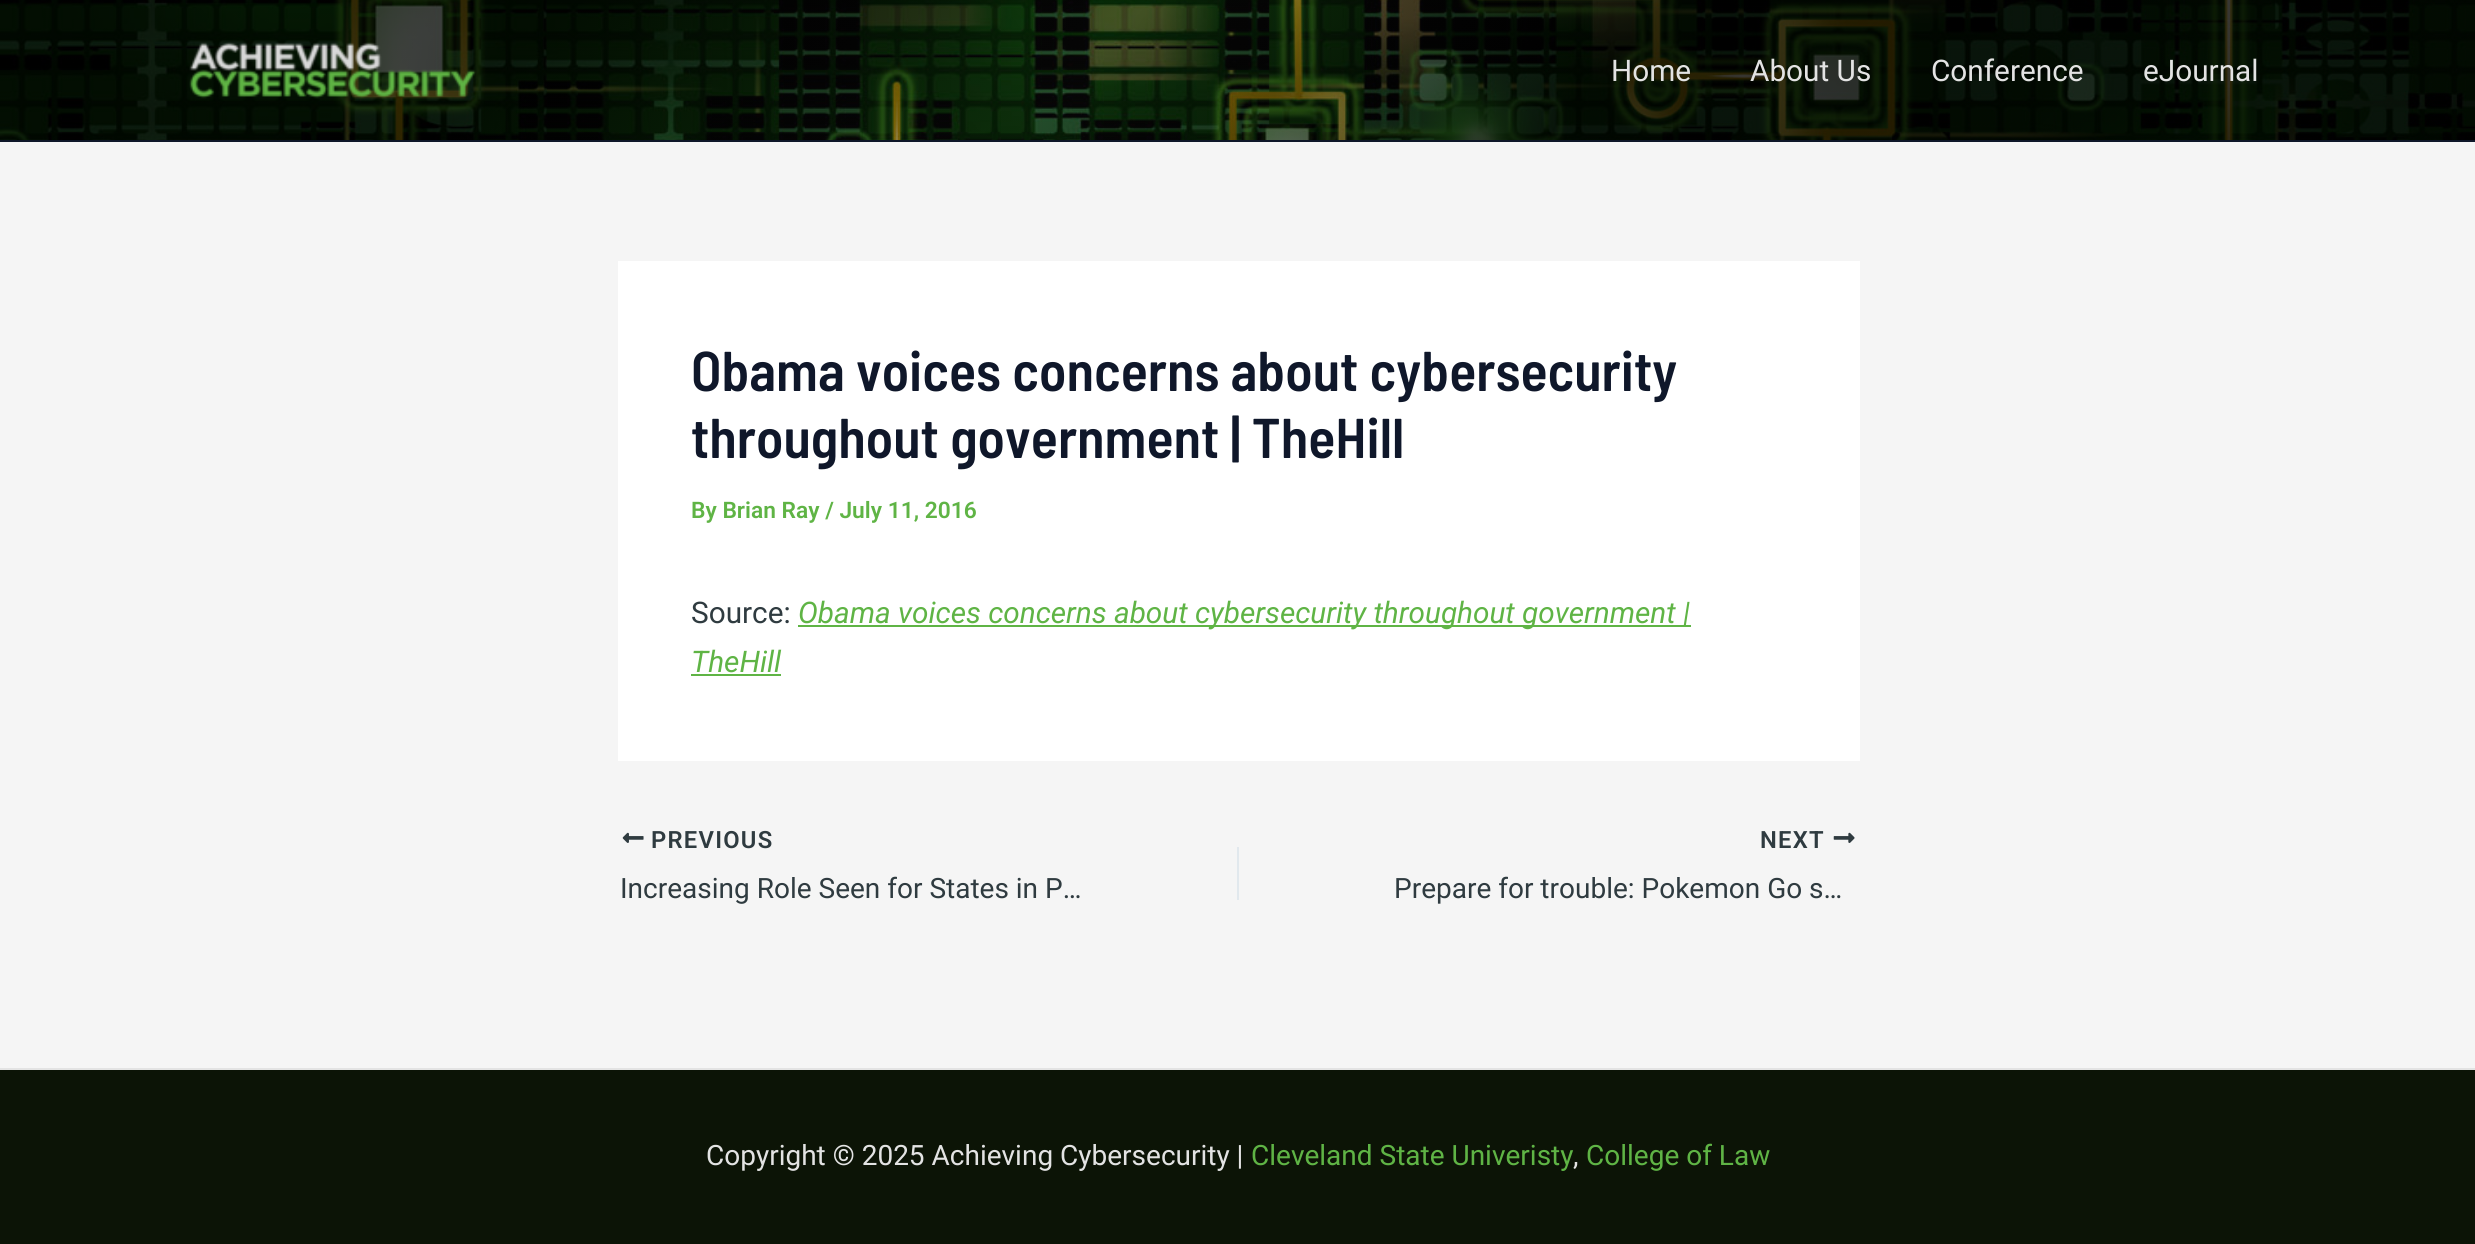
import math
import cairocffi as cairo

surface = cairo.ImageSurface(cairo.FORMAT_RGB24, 2475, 1244)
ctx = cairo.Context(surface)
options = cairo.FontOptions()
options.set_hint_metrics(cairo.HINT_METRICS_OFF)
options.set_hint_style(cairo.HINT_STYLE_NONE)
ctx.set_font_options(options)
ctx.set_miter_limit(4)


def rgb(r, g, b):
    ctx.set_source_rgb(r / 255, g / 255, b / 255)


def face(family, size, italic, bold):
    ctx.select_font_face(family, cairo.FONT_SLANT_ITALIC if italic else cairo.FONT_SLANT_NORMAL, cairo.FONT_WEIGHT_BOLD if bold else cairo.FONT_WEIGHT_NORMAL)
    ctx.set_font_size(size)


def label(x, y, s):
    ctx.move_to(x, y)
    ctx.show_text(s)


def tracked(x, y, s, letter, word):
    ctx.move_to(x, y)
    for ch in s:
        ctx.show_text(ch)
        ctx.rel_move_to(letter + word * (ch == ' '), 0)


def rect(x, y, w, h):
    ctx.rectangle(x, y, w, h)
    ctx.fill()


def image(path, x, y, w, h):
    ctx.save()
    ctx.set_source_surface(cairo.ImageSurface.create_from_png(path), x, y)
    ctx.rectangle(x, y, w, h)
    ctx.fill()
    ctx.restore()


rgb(245, 245, 245)
ctx.paint()
image('image0.png', 0, 0, 2475, 140)
rgb(15, 23, 42)
rect(0, 140, 2475, 2)
image('image1.png', 189, 42, 287, 57)
face('Roboto', 29.75, 0, 0)
rgb(227, 227, 227)
label(1611, 81, 'Home')
label(1750, 81, 'About Us')
label(1931, 81, 'Conference')
label(2143, 81, 'eJournal')
rgb(255, 255, 255)
rect(618, 261, 1242, 500)
face('Barlow Semi Condensed SemiBold', 56, 0, 0)
rgb(15, 23, 42)
label(691, 391, 'Obama voices concerns about cybersecurity')
label(691, 458, 'throughout government | TheHill')
face('Roboto SemiBold', 22.75, 0, 0)
rgb(95, 180, 69)
label(691, 518, 'By Brian Ray / July 11, 2016')
face('Roboto', 29.75, 0, 0)
rgb(47, 59, 64)
label(691, 623, 'Source:')
rgb(95, 180, 69)
rect(798, 625, 893, 2)
face('Roboto', 29.75, 1, 0)
label(798, 623, 'Obama voices concerns about cybersecurity throughout government |')
label(691, 672, 'TheHill')
rect(691, 674, 90, 2)
image('image2.png', 622, 832, 22, 11)
face('Roboto SemiBold', 23.75, 0, 0)
rgb(47, 59, 64)
tracked(651, 848, 'PREVIOUS', 1.25, 0)
face('Roboto', 28, 0, 0)
label(620, 898, 'Increasing Role Seen for States in P…')
rgb(225, 232, 237)
rect(1237, 847, 2, 53)
face('Roboto SemiBold', 23.75, 0, 0)
rgb(47, 59, 64)
tracked(1760, 848, 'NEXT', 1.25, 0)
image('image3.png', 1833, 832, 22, 11)
face('Roboto', 28, 0, 0)
label(1394, 898, 'Prepare for trouble: Pokemon Go s…')
rgb(12, 20, 6)
rect(0, 1070, 2475, 174)
rgb(227, 227, 227)
rect(0, 1068, 2475, 2)
label(706, 1165, 'Copyright © 2025 Achieving Cybersecurity |')
rgb(95, 180, 69)
label(1251, 1165, 'Cleveland State Univeristy')
rgb(227, 227, 227)
label(1573, 1165, ',')
rgb(95, 180, 69)
label(1586, 1165, 'College of Law')
surface.write_to_png('render.png')
